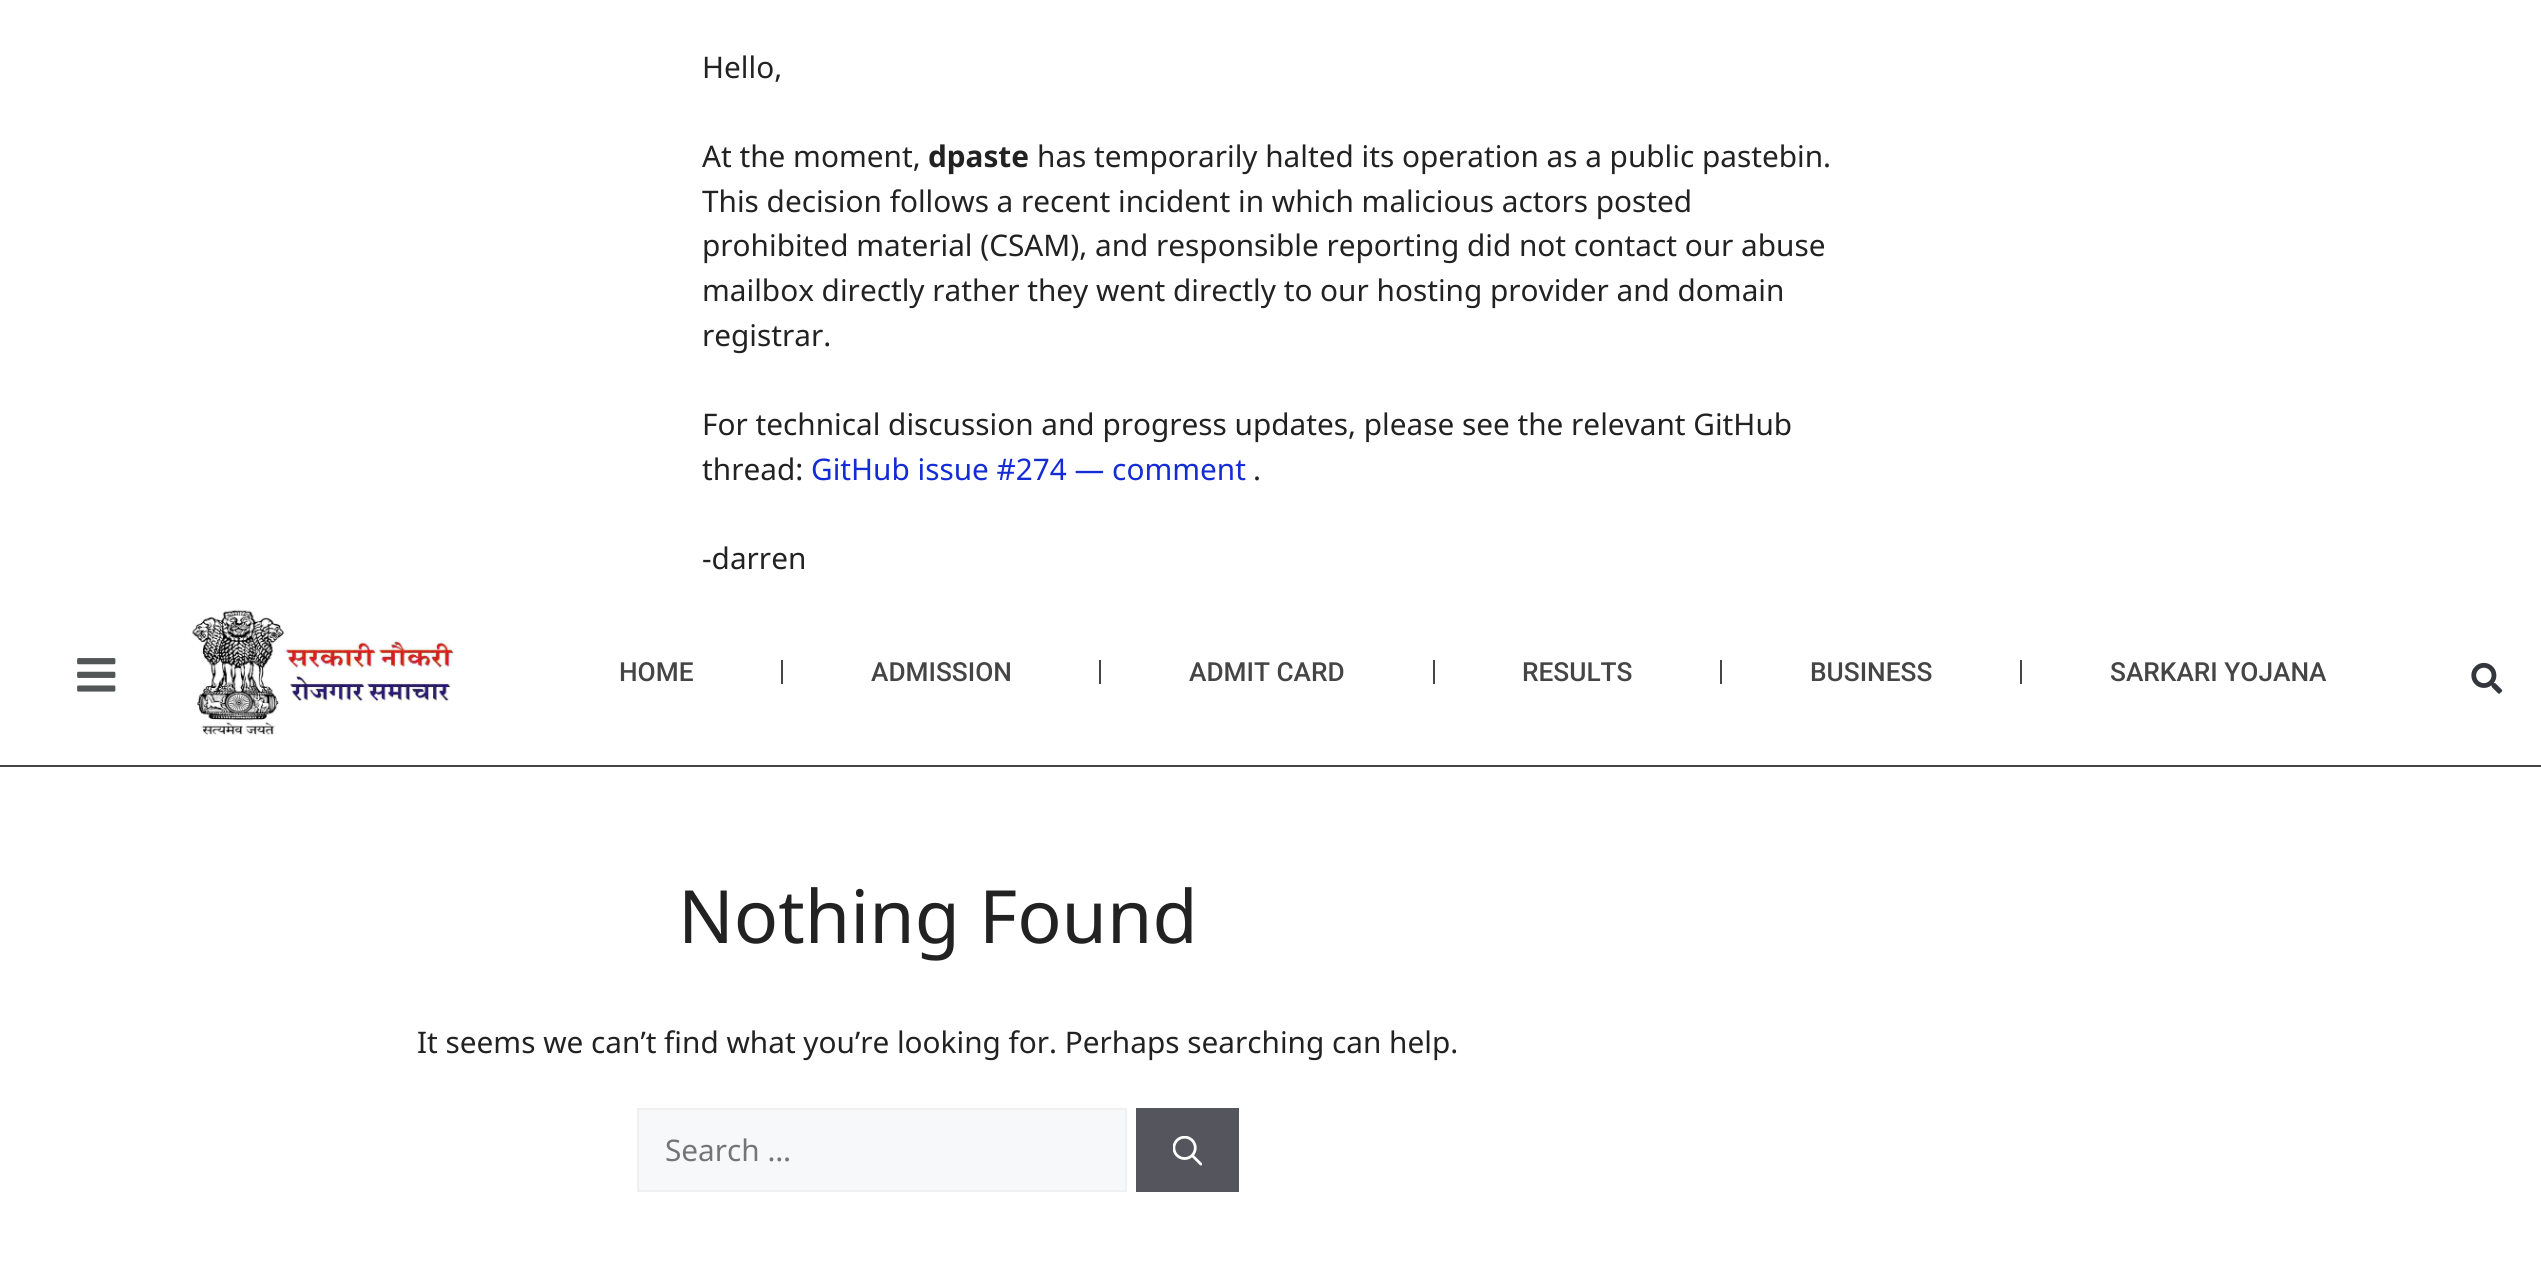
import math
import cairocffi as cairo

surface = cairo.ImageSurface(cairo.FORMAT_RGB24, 2541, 1265)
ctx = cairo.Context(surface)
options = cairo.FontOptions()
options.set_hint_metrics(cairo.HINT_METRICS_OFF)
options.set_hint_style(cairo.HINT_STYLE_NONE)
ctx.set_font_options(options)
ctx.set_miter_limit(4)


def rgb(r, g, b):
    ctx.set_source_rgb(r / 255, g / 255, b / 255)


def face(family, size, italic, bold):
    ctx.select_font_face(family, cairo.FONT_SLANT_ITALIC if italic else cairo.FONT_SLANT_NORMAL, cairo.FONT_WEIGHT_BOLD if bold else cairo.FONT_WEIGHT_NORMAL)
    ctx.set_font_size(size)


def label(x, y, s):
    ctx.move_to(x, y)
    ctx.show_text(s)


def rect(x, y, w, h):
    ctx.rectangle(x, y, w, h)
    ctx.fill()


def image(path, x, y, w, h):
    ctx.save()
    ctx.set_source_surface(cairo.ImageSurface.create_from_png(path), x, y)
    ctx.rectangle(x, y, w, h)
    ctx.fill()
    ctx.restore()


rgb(255, 255, 255)
ctx.paint()
face('Noto Sans', 29.75, 0, 0)
rgb(34, 34, 34)
label(702, 78, 'Hello,')
label(702, 167, 'At the moment,')
face('Noto Sans', 29.75, 0, 1)
label(928, 167, 'dpaste')
face('Noto Sans', 29.75, 0, 0)
label(1037, 167, 'has temporarily halted its operation as a public pastebin.')
label(702, 212, 'This decision follows a recent incident in which malicious actors posted')
label(702, 256, 'prohibited material (CSAM), and responsible reporting did not contact our abuse')
label(702, 301, 'mailbox directly rather they went directly to our hosting provider and domain')
label(702, 346, 'registrar.')
label(702, 435, 'For technical discussion and progress updates, please see the relevant GitHub')
label(702, 480, 'thread:')
rgb(19, 44, 213)
label(811, 480, 'GitHub issue #274 — comment')
rgb(34, 34, 34)
label(1253, 480, '.')
label(702, 569, '-darren')
rgb(69, 69, 69)
rect(0, 765, 2541, 2)
image('image0.png', 77, 658, 39, 34)
image('image1.png', 191, 609, 263, 126)
face('Roboto Medium', 26.25, 0, 0)
label(619, 681, 'HOME')
rect(781, 660, 2, 24)
label(871, 681, 'ADMISSION')
rect(1099, 660, 2, 24)
label(1189, 681, 'ADMIT CARD')
rect(1433, 660, 2, 24)
label(1522, 681, 'RESULTS')
rect(1720, 660, 2, 24)
label(1810, 681, 'BUSINESS')
rect(2020, 660, 2, 24)
label(2110, 681, 'SARKARI YOJANA')
image('image2.png', 2471, 662, 32, 32)
face('Noto Sans', 73.5, 0, 0)
rgb(34, 34, 34)
label(678, 943, 'Nothing Found')
face('Noto Sans', 29.75, 0, 0)
label(417, 1053, 'It seems we can’t find what you’re looking for. Perhaps searching can help.')
rgb(247, 248, 249)
ctx.rectangle(638, 1109, 488, 82)
ctx.fill_preserve()
rgb(240, 240, 240)
ctx.stroke()
rgb(117, 117, 117)
label(665, 1161, 'Search …')
rgb(85, 85, 94)
rect(1136, 1108, 103, 84)
image('image3.png', 1173, 1136, 29, 30)
surface.write_to_png('render.png')
